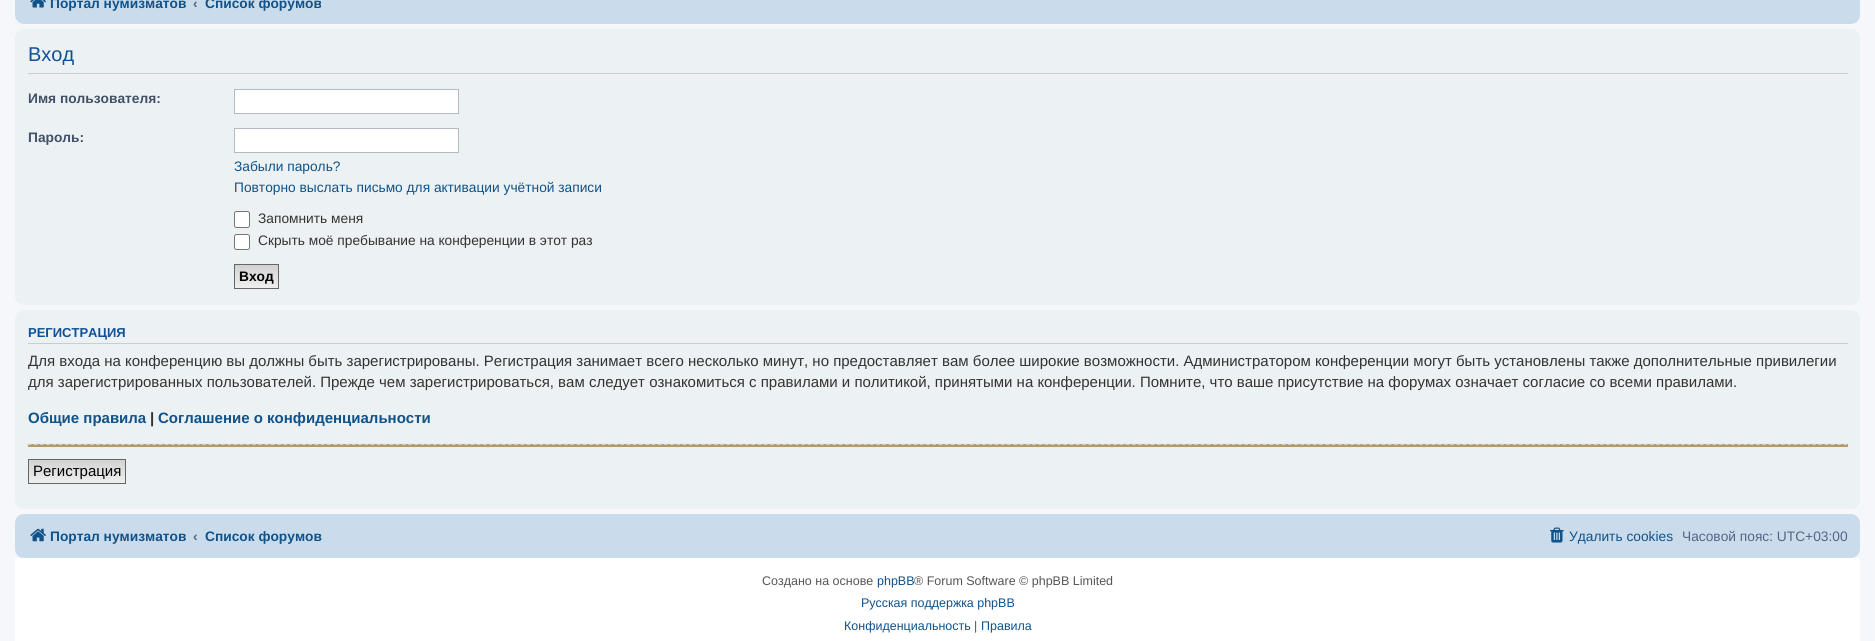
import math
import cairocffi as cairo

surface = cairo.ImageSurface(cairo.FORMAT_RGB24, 1875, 641)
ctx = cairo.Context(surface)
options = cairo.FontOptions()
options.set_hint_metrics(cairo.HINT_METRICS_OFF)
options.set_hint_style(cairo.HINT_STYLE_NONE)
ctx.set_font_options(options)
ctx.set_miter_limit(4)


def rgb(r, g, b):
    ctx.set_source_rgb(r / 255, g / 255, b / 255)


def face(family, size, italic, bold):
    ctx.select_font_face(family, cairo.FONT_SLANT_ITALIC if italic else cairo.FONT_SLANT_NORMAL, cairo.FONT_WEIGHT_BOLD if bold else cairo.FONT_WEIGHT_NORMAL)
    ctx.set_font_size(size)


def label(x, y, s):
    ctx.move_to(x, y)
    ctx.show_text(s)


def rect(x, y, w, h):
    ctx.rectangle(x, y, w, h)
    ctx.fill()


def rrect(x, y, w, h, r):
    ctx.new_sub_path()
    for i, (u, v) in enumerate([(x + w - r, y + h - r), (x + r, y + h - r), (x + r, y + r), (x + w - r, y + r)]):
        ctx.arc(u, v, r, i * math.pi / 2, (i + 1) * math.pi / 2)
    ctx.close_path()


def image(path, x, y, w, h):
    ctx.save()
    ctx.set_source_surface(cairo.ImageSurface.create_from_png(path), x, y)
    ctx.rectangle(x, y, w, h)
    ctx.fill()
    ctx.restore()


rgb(245, 247, 250)
ctx.paint()
rgb(202, 220, 235)
rrect(15, -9, 1845, 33, 9)
ctx.fill()
image('image0.png', 30, 0, 16, 8)
face('Liberation Sans', 13.75, 0, 1)
rgb(16, 82, 137)
label(50, 8, 'Портал нумизматов')
rgb(83, 100, 130)
label(193, 8, '‹')
rgb(16, 82, 137)
label(205, 8, 'Список форумов')
rgb(236, 241, 243)
rrect(15, 29, 1845, 276, 9)
ctx.fill()
rgb(204, 204, 204)
rect(28, 73, 1820, 1)
face('Liberation Sans', 20, 0, 0)
rgb(17, 80, 152)
label(28, 61, 'Вход')
face('Liberation Sans', 13.75, 0, 1)
rgb(66, 80, 103)
label(28, 103, 'Имя пользователя:')
rgb(255, 255, 255)
ctx.rectangle(234.5, 89.5, 224, 24)
ctx.fill_preserve()
rgb(180, 186, 192)
ctx.set_line_width(1)
ctx.stroke()
rgb(66, 80, 103)
label(28, 142, 'Пароль:')
rgb(255, 255, 255)
ctx.rectangle(234.5, 128.5, 224, 24)
ctx.fill_preserve()
rgb(180, 186, 192)
ctx.stroke()
face('Liberation Sans', 13.75, 0, 0)
rgb(16, 82, 137)
label(234, 171, 'Забыли пароль?')
label(234, 192, 'Повторно выслать письмо для активации учётной записи')
rgb(255, 255, 255)
rrect(234.5, 211.5, 15, 16, 2)
ctx.fill_preserve()
rgb(118, 118, 118)
ctx.stroke()
rgb(51, 51, 51)
label(258, 223, 'Запомнить меня')
rgb(255, 255, 255)
rrect(234.5, 234.5, 15, 15, 2)
ctx.fill_preserve()
rgb(118, 118, 118)
ctx.stroke()
rgb(51, 51, 51)
label(258, 245, 'Скрыть моё пребывание на конференции в этот раз')
gradient = cairo.LinearGradient(256, 265, 256, 288)
gradient.add_color_stop_rgba(0, 0.824, 0.824, 0.824, 1)
gradient.add_color_stop_rgba(1, 0.937, 0.937, 0.937, 1)
ctx.set_source(gradient)
rect(235, 265, 43, 23)
ctx.rectangle(234.5, 264.5, 44, 24)
rgb(102, 102, 102)
ctx.stroke()
face('Liberation Sans', 13.75, 0, 1)
rgb(0, 0, 0)
label(239, 281, 'Вход')
rgb(236, 241, 243)
rrect(15, 310, 1845, 199, 9)
ctx.fill()
rgb(204, 204, 204)
rect(28, 343, 1820, 1)
face('Liberation Sans', 13, 0, 1)
rgb(17, 80, 152)
label(28, 337, 'РЕГИСТРАЦИЯ')
ctx.save()
ctx.rectangle(28, 316, 1820, 187)
ctx.clip()
face('Liberation Sans', 15, 0, 0)
rgb(51, 51, 51)
label(28, 366, 'Для входа на конференцию вы должны быть зарегистрированы. Регистрация занимает всего несколько минут, но предоставляет вам более широкие возможности. Администратором конференции могут быть установлены также дополнительные привилегии')
label(28, 387, 'для зарегистрированных пользователей. Прежде чем зарегистрироваться, вам следует ознакомиться с правилами и политикой, принятыми на конференции. Помните, что ваше присутствие на форумах означает согласие со всеми правилами.')
ctx.restore()
face('Liberation Sans', 15, 0, 1)
rgb(16, 82, 137)
label(28, 423, 'Общие правила')
rgb(51, 51, 51)
label(150, 423, '|')
rgb(16, 82, 137)
label(158, 423, 'Соглашение о конфиденциальности')
rgb(178, 154, 101)
rect(28, 444, 1820, 3)
ctx.new_path()
ctx.move_to(27.5, 444.5)
ctx.line_to(1847.5, 444.5)
rgb(204, 204, 204)
ctx.set_line_width(1.2)
ctx.set_dash([3.75, 2.49])
ctx.stroke()
gradient = cairo.LinearGradient(77, 460, 77, 483)
gradient.add_color_stop_rgba(0, 0.824, 0.824, 0.824, 1)
gradient.add_color_stop_rgba(1, 0.937, 0.937, 0.937, 1)
ctx.set_source(gradient)
rect(29, 460, 96, 23)
ctx.rectangle(28.5, 459.5, 97, 24)
rgb(102, 102, 102)
ctx.set_line_width(1)
ctx.set_dash([])
ctx.stroke()
face('Liberation Sans', 15, 0, 0)
rgb(0, 0, 0)
label(33, 476, 'Регистрация')
rgb(202, 220, 235)
rrect(15, 514, 1845, 44, 9)
ctx.fill()
image('image1.png', 30, 528, 16, 14)
face('Liberation Sans', 13.75, 0, 1)
rgb(16, 82, 137)
label(50, 541, 'Портал нумизматов')
rgb(83, 100, 130)
label(193, 541, '‹')
rgb(16, 82, 137)
label(205, 541, 'Список форумов')
image('image2.png', 1550, 527, 14, 16)
face('Liberation Sans', 13.75, 0, 0)
label(1569, 541, 'Удалить cookies')
rgb(83, 100, 130)
label(1682, 541, 'Часовой пояс: UTC+03:00')
rgb(255, 255, 255)
rect(15, 558, 1845, 83)
face('Liberation Sans', 12.5, 0, 0)
rgb(85, 85, 85)
label(762, 585, 'Создано на основе')
rgb(16, 82, 137)
label(877, 585, 'phpBB')
rgb(85, 85, 85)
label(914, 585, '® Forum Software © phpBB Limited')
rgb(16, 82, 137)
label(861, 607, 'Русская поддержка phpBB')
label(844, 630, 'Конфиденциальность')
rgb(85, 85, 85)
label(974, 630, '|')
rgb(16, 82, 137)
label(981, 630, 'Правила')
surface.write_to_png('render.png')
